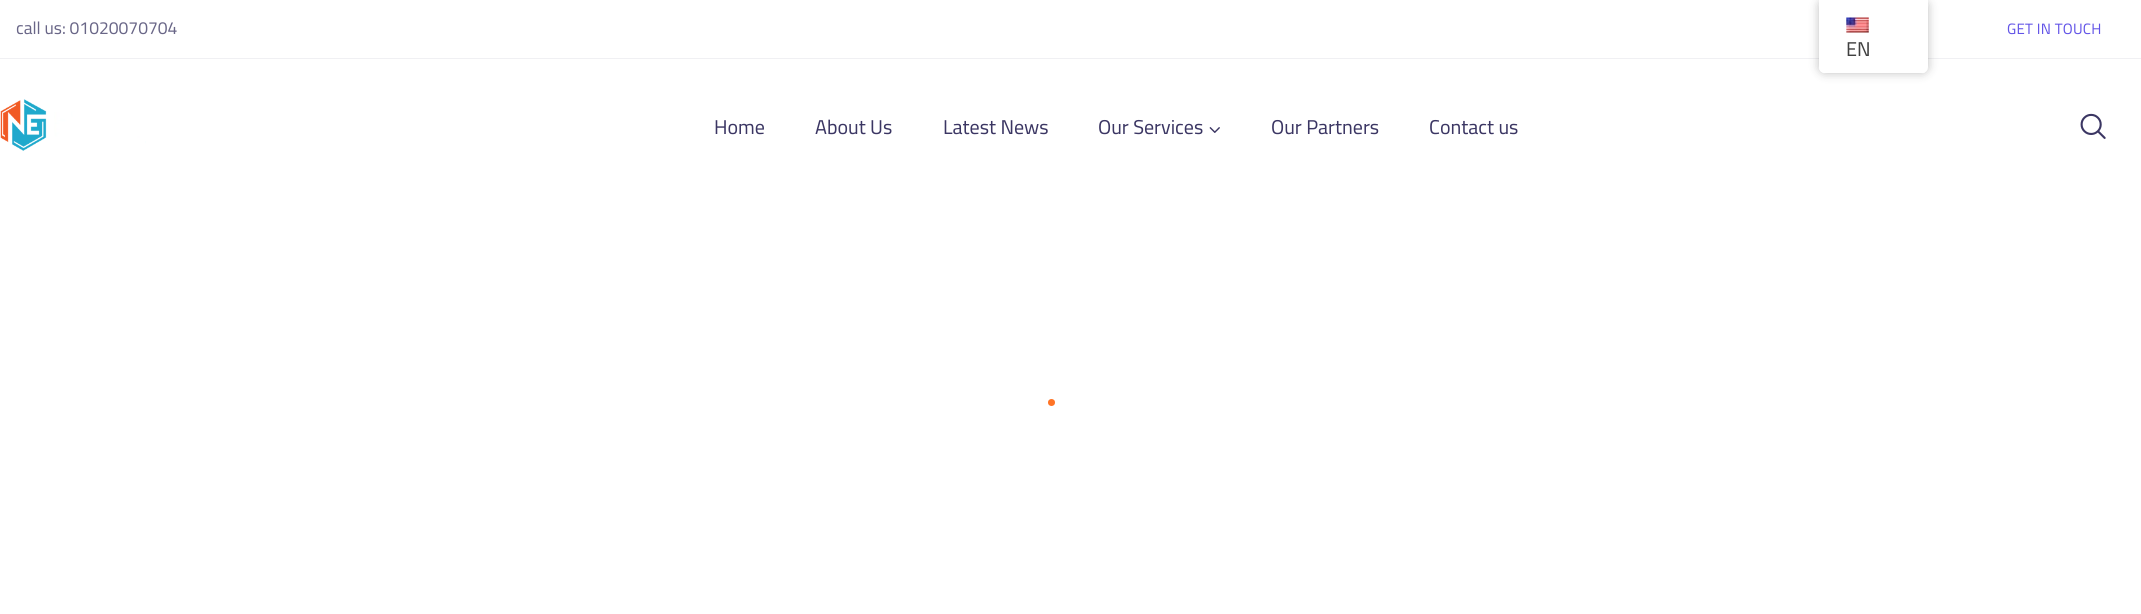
import math
import cairocffi as cairo

surface = cairo.ImageSurface(cairo.FORMAT_RGB24, 2141, 614)
ctx = cairo.Context(surface)
options = cairo.FontOptions()
options.set_hint_metrics(cairo.HINT_METRICS_OFF)
options.set_hint_style(cairo.HINT_STYLE_NONE)
ctx.set_font_options(options)
ctx.set_miter_limit(4)


def rgb(r, g, b):
    ctx.set_source_rgb(r / 255, g / 255, b / 255)


def face(family, size, italic, bold):
    ctx.select_font_face(family, cairo.FONT_SLANT_ITALIC if italic else cairo.FONT_SLANT_NORMAL, cairo.FONT_WEIGHT_BOLD if bold else cairo.FONT_WEIGHT_NORMAL)
    ctx.set_font_size(size)


def label(x, y, s):
    ctx.move_to(x, y)
    ctx.show_text(s)


def tracked(x, y, s, letter, word):
    ctx.move_to(x, y)
    for ch in s:
        ctx.show_text(ch)
        ctx.rel_move_to(letter + word * (ch == ' '), 0)


def rect(x, y, w, h):
    ctx.rectangle(x, y, w, h)
    ctx.fill()


def rrect(x, y, w, h, r):
    ctx.new_sub_path()
    for i, (u, v) in enumerate([(x + w - r, y + h - r), (x + r, y + h - r), (x + r, y + r), (x + w - r, y + r)]):
        ctx.arc(u, v, r, i * math.pi / 2, (i + 1) * math.pi / 2)
    ctx.close_path()


def soft_shadow(x, y, w, h, r, blur, alpha):
    ctx.push_group_with_content(cairo.CONTENT_ALPHA)
    ctx.set_operator(cairo.OPERATOR_SOURCE)
    for i in range(15, -16, -2):
        e = blur * i / 6
        if min(w, h) + 2 * e > 0:
            ctx.set_source_rgba(0, 0, 0, alpha * math.erfc((i - 1) / 8.5) / 2)
            rrect(x - e, y - e, w + 2 * e, h + 2 * e, max(0, min(r + e + blur * .6, min(w, h) / 2 + e)))
            ctx.fill()
    ctx.mask(ctx.pop_group())


def image(path, x, y, w, h):
    ctx.save()
    ctx.set_source_surface(cairo.ImageSurface.create_from_png(path), x, y)
    ctx.rectangle(x, y, w, h)
    ctx.fill()
    ctx.restore()


rgb(255, 255, 255)
ctx.paint()
rgb(240, 240, 243)
rect(0, 58, 2141, 1)
face('Cairo', 17.5, 0, 0)
rgb(105, 102, 135)
label(16, 34, 'call us: 01020070704')
face('Cairo', 15, 0, 0)
rgb(98, 84, 231)
tracked(2007, 34, 'GET IN TOUCH', 0.25, 0)
image('image0.png', 0, 99, 146, 52)
face('Cairo', 20, 0, 0)
rgb(59, 54, 99)
label(714, 134, 'Home')
label(815, 134, 'About Us')
label(943, 134, 'Latest News')
label(1098, 134, 'Our Services')
image('image1.png', 1209, 127, 11, 6)
label(1271, 134, 'Our Partners')
label(1429, 134, 'Contact us')
image('image2.png', 2080, 113, 26, 26)
rgb(0, 0, 0)
soft_shadow(1819, 0, 109, 73, 6, 5, 0.25)
rgb(255, 255, 255)
ctx.new_path()
ctx.move_to(1819, 0)
ctx.line_to(1928, 0)
ctx.line_to(1928, 67)
ctx.curve_to(1928, 70.5, 1925.5, 73, 1922, 73)
ctx.line_to(1825, 73)
ctx.curve_to(1821.5, 73, 1819, 70.5, 1819, 67)
ctx.close_path()
ctx.fill()
ctx.save()
ctx.new_path()
ctx.move_to(1819, 0)
ctx.line_to(1928, 0)
ctx.line_to(1928, 67)
ctx.curve_to(1928, 70.5, 1925.5, 73, 1922, 73)
ctx.line_to(1825, 73)
ctx.curve_to(1821.5, 73, 1819, 70.5, 1819, 67)
ctx.close_path()
ctx.clip()
ctx.new_path()
ctx.move_to(1819, 5)
ctx.line_to(1925, 5)
ctx.line_to(1925, 73)
ctx.line_to(1825, 73)
ctx.curve_to(1821.5, 73, 1819, 70.5, 1819, 67)
ctx.close_path()
ctx.fill()
ctx.restore()
image('image3.png', 1846, 17, 23, 16)
rgb(64, 64, 64)
label(1846, 56, 'EN')
rgb(255, 116, 38)
ctx.new_path()
ctx.arc(1051.5, 402.5, 3.5, 0, 2 * math.pi)
ctx.fill()
surface.write_to_png('render.png')
